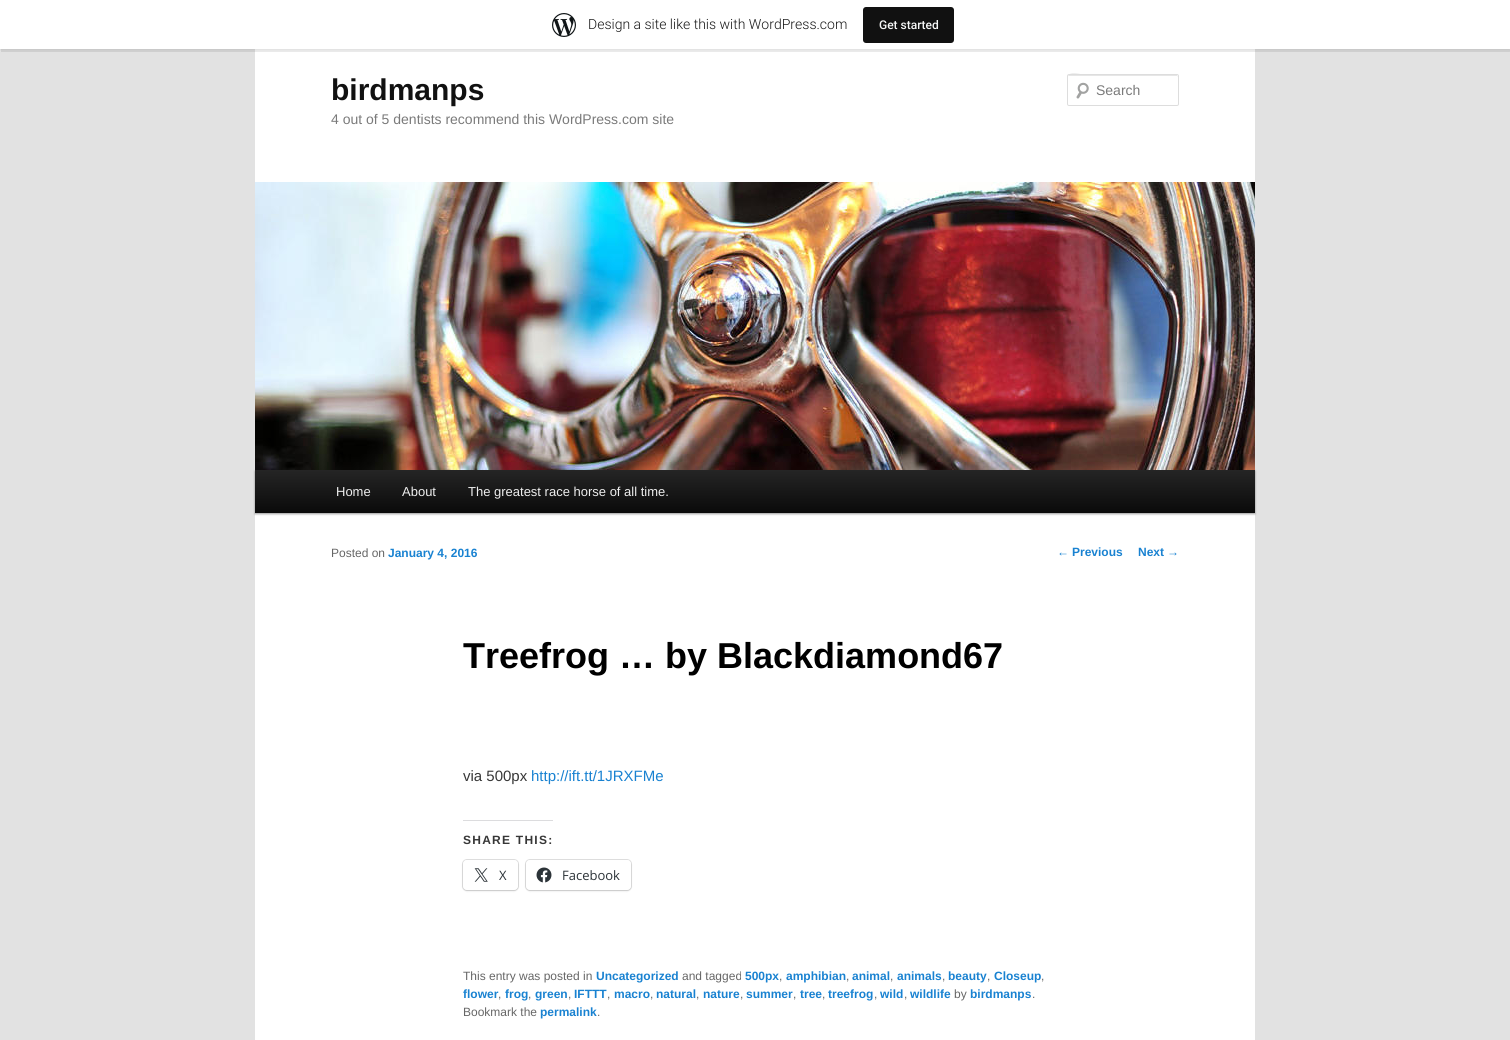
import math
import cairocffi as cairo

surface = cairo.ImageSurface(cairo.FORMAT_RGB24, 1510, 1040)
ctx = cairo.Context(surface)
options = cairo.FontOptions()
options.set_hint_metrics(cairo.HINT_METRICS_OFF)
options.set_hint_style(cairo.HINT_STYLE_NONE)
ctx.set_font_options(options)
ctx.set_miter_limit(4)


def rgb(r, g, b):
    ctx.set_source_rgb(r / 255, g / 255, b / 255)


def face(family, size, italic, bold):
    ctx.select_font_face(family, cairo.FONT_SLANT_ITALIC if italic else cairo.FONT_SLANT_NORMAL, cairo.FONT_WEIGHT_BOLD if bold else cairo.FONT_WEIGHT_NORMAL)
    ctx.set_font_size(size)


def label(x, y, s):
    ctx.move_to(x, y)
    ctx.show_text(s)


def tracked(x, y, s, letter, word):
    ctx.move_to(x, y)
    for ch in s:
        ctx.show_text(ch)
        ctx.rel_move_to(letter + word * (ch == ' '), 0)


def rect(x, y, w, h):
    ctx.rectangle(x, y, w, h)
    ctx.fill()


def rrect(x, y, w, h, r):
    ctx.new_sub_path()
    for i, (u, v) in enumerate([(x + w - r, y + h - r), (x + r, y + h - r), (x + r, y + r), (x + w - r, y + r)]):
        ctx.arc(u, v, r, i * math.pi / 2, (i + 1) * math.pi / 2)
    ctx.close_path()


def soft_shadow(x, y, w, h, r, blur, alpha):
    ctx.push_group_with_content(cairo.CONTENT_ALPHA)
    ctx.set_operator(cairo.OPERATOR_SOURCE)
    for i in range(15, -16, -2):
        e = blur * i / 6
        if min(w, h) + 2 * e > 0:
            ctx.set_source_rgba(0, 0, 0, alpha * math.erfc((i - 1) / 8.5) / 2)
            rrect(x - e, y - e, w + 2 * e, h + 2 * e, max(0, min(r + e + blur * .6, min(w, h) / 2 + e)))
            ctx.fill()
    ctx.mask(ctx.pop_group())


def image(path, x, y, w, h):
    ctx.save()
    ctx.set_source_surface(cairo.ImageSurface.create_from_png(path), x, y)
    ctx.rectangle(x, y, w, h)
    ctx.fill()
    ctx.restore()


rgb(226, 226, 226)
ctx.paint()
rgb(255, 255, 255)
rect(255, 49, 1000, 991)
rgb(0, 0, 0)
soft_shadow(0, 1, 1510, 49, 0, 1, 0.05)
ctx.set_source_rgba(0, 0, 0, 0.08)
ctx.new_path()
ctx.move_to(1, 49)
ctx.line_to(1, 52)
ctx.line_to(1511, 52)
ctx.line_to(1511, 3)
ctx.line_to(1510, 3)
ctx.line_to(1510, 49)
ctx.close_path()
ctx.fill()
rgb(255, 255, 255)
rect(0, 0, 1510, 49)
image('image0.png', 552, 13, 24, 24)
face('Roboto Light', 14, 0, 0)
rgb(23, 23, 23)
label(588, 29, 'Design a site like this with WordPress.com')
rgb(17, 17, 17)
rrect(863, 7, 91, 36, 3)
ctx.fill()
face('Roboto Medium', 12, 0, 0)
rgb(246, 247, 247)
label(879, 29, 'Get started')
face('Liberation Sans', 30, 0, 1)
rgb(17, 17, 17)
label(331, 100, 'birdmanps')
face('Liberation Sans', 14, 0, 0)
rgb(122, 122, 122)
label(331, 124, '4 out of 5 dentists recommend this WordPress.com site')
image('image1.png', 1076, 82, 13, 17)
rgb(230, 230, 230)
ctx.new_path()
ctx.move_to(1069, 76)
ctx.line_to(1178, 76)
ctx.line_to(1178, 77)
ctx.line_to(1177, 75)
ctx.line_to(1087, 75)
ctx.curve_to(1083, 75, 1068, 70, 1068, 77)
ctx.curve_to(1068, 76, 1068, 76, 1069, 76)
ctx.close_path()
ctx.fill()
rrect(1067.5, 74.5, 111, 31, 1.5)
rgb(221, 221, 221)
ctx.set_line_width(1)
ctx.stroke()
rgb(122, 122, 122)
label(1096, 95, 'Search')
rgb(0, 0, 0)
soft_shadow(255, 471, 1000, 43, 0, 1, 0.4)
image('image2.png', 255, 182, 1000, 288)
gradient = cairo.LinearGradient(755, 470, 755, 513)
gradient.add_color_stop_rgba(0, 0.145, 0.145, 0.145, 1)
gradient.add_color_stop_rgba(1, 0.039, 0.039, 0.039, 1)
ctx.set_source(gradient)
rect(255, 470, 1000, 43)
face('Liberation Sans', 13, 0, 0)
rgb(238, 238, 238)
label(336, 496, 'Home')
label(402, 496, 'About')
label(468, 496, 'The greatest race horse of all time.')
face('Liberation Sans', 12, 0, 0)
rgb(102, 102, 102)
label(331, 557, 'Posted on')
face('Liberation Sans', 12, 0, 1)
rgb(25, 130, 209)
label(388, 557, 'January 4, 2016')
face('Liberation Sans', 36, 0, 1)
rgb(0, 0, 0)
label(463, 668, 'Treefrog … by Blackdiamond67')
face('Liberation Sans', 15, 0, 0)
rgb(55, 55, 55)
label(463, 781, 'via 500px')
rgb(25, 130, 209)
label(531, 781, 'http://ift.tt/1JRXFMe')
rgb(220, 220, 222)
rect(463, 820, 90, 1)
face('Liberation Sans', 12, 0, 1)
rgb(55, 55, 55)
tracked(463, 844, 'SHARE THIS:', 1.25, 0)
rrect(462.5, 859.5, 56, 31, 4.5)
rgb(224, 224, 224)
ctx.stroke()
rgb(0, 0, 0)
soft_shadow(463, 861, 55, 30, 4, 1, 0.12)
rgb(255, 255, 255)
rrect(463, 860, 55, 30, 4)
ctx.fill()
image('image3.png', 474, 868, 14, 14)
face('Open Sans', 13, 0, 0)
rgb(44, 51, 56)
label(499, 880, 'X')
rrect(525.5, 859.5, 106, 31, 4.5)
rgb(224, 224, 224)
ctx.stroke()
rgb(0, 0, 0)
soft_shadow(526, 861, 105, 30, 4, 1, 0.12)
rgb(255, 255, 255)
rrect(526, 860, 105, 30, 4)
ctx.fill()
image('image4.png', 536, 867, 16, 16)
rgb(44, 51, 56)
label(562, 880, 'Facebook')
face('Liberation Sans', 12, 0, 0)
rgb(102, 102, 102)
label(463, 980, 'This entry was posted in')
face('Liberation Sans', 12, 0, 1)
rgb(25, 130, 209)
label(596, 980, 'Uncategorized')
face('Liberation Sans', 12, 0, 0)
rgb(102, 102, 102)
label(682, 980, 'and tagged')
face('Liberation Sans', 12, 0, 1)
rgb(25, 130, 209)
label(745, 980, '500px')
face('Liberation Sans', 12, 0, 0)
rgb(102, 102, 102)
label(779, 980, ',')
face('Liberation Sans', 12, 0, 1)
rgb(25, 130, 209)
label(786, 980, 'amphibian')
face('Liberation Sans', 12, 0, 0)
rgb(102, 102, 102)
label(846, 980, ',')
face('Liberation Sans', 12, 0, 1)
rgb(25, 130, 209)
label(852, 980, 'animal')
face('Liberation Sans', 12, 0, 0)
rgb(102, 102, 102)
label(890, 980, ',')
face('Liberation Sans', 12, 0, 1)
rgb(25, 130, 209)
label(897, 980, 'animals')
face('Liberation Sans', 12, 0, 0)
rgb(102, 102, 102)
label(942, 980, ',')
face('Liberation Sans', 12, 0, 1)
rgb(25, 130, 209)
label(948, 980, 'beauty')
face('Liberation Sans', 12, 0, 0)
rgb(102, 102, 102)
label(987, 980, ',')
face('Liberation Sans', 12, 0, 1)
rgb(25, 130, 209)
label(994, 980, 'Closeup')
face('Liberation Sans', 12, 0, 0)
rgb(102, 102, 102)
label(1041, 980, ',')
face('Liberation Sans', 12, 0, 1)
rgb(25, 130, 209)
label(463, 998, 'flower')
face('Liberation Sans', 12, 0, 0)
rgb(102, 102, 102)
label(498, 998, ',')
face('Liberation Sans', 12, 0, 1)
rgb(25, 130, 209)
label(505, 998, 'frog')
face('Liberation Sans', 12, 0, 0)
rgb(102, 102, 102)
label(528, 998, ',')
face('Liberation Sans', 12, 0, 1)
rgb(25, 130, 209)
label(535, 998, 'green')
face('Liberation Sans', 12, 0, 0)
rgb(102, 102, 102)
label(568, 998, ',')
face('Liberation Sans', 12, 0, 1)
rgb(25, 130, 209)
label(574, 998, 'IFTTT')
face('Liberation Sans', 12, 0, 0)
rgb(102, 102, 102)
label(607, 998, ',')
face('Liberation Sans', 12, 0, 1)
rgb(25, 130, 209)
label(614, 998, 'macro')
face('Liberation Sans', 12, 0, 0)
rgb(102, 102, 102)
label(650, 998, ',')
face('Liberation Sans', 12, 0, 1)
rgb(25, 130, 209)
label(656, 998, 'natural')
face('Liberation Sans', 12, 0, 0)
rgb(102, 102, 102)
label(696, 998, ',')
face('Liberation Sans', 12, 0, 1)
rgb(25, 130, 209)
label(703, 998, 'nature')
face('Liberation Sans', 12, 0, 0)
rgb(102, 102, 102)
label(740, 998, ',')
face('Liberation Sans', 12, 0, 1)
rgb(25, 130, 209)
label(746, 998, 'summer')
face('Liberation Sans', 12, 0, 0)
rgb(102, 102, 102)
label(793, 998, ',')
face('Liberation Sans', 12, 0, 1)
rgb(25, 130, 209)
label(800, 998, 'tree')
face('Liberation Sans', 12, 0, 0)
rgb(102, 102, 102)
label(822, 998, ',')
face('Liberation Sans', 12, 0, 1)
rgb(25, 130, 209)
label(828, 998, 'treefrog')
face('Liberation Sans', 12, 0, 0)
rgb(102, 102, 102)
label(874, 998, ',')
face('Liberation Sans', 12, 0, 1)
rgb(25, 130, 209)
label(880, 998, 'wild')
face('Liberation Sans', 12, 0, 0)
rgb(102, 102, 102)
label(904, 998, ',')
face('Liberation Sans', 12, 0, 1)
rgb(25, 130, 209)
label(910, 998, 'wildlife')
face('Liberation Sans', 12, 0, 0)
rgb(102, 102, 102)
label(954, 998, 'by')
face('Liberation Sans', 12, 0, 1)
rgb(25, 130, 209)
label(970, 998, 'birdmanps')
face('Liberation Sans', 12, 0, 0)
rgb(102, 102, 102)
label(1032, 998, '.')
label(463, 1016, 'Bookmark the')
face('Liberation Sans', 12, 0, 1)
rgb(25, 130, 209)
label(540, 1016, 'permalink')
face('Liberation Sans', 12, 0, 0)
rgb(102, 102, 102)
label(597, 1016, '.')
rgb(25, 130, 209)
label(1057, 556, '←')
face('Liberation Sans', 12, 0, 1)
label(1072, 556, 'Previous')
label(1138, 556, 'Next')
face('Liberation Sans', 12, 0, 0)
label(1167, 556, '→')
surface.write_to_png('render.png')
